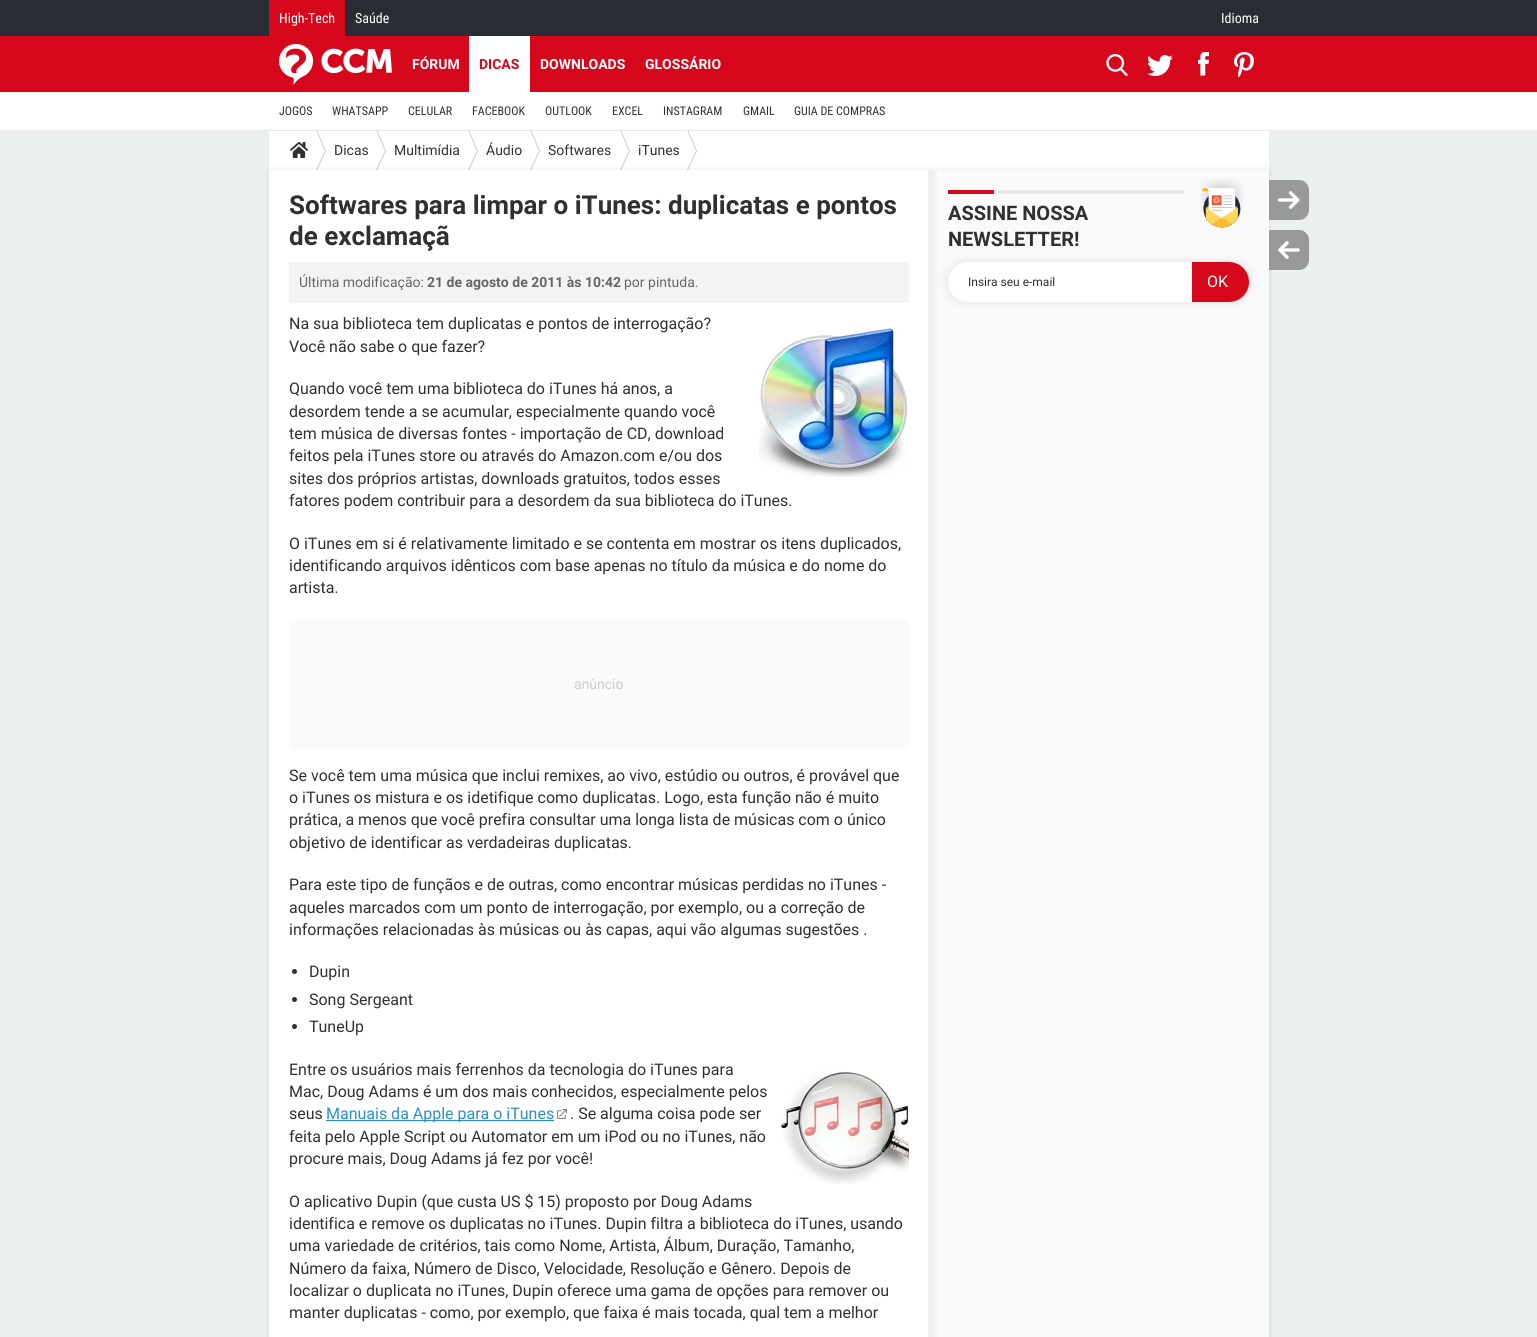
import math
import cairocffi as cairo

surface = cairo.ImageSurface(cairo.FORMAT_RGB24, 1537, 1337)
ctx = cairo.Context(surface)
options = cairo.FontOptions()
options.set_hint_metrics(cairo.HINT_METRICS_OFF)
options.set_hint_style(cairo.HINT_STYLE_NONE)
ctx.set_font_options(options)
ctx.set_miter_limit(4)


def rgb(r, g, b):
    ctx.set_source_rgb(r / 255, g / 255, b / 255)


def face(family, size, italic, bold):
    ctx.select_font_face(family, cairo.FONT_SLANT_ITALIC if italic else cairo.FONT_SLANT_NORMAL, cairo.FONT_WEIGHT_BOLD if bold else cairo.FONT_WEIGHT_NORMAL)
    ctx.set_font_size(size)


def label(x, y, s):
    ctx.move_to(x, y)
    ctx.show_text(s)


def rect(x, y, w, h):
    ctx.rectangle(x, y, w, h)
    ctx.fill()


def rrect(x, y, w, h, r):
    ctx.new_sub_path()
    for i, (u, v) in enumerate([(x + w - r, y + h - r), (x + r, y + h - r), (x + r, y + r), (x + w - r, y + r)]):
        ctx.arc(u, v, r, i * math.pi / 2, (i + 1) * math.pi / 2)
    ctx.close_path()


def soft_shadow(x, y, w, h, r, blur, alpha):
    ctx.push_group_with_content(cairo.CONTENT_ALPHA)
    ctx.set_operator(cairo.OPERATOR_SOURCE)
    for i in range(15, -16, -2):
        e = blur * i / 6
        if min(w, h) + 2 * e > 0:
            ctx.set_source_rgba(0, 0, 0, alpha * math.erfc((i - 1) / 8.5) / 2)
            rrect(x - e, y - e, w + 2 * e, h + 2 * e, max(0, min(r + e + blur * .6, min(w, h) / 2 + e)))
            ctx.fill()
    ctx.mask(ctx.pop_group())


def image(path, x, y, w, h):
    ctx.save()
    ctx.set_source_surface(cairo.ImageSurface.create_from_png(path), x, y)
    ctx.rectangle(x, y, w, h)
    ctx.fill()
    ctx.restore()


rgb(237, 240, 240)
ctx.paint()
rgb(255, 255, 255)
rect(269, 131, 1000, 39)
rgb(201, 201, 201)
ctx.set_fill_rule(cairo.FILL_RULE_EVEN_ODD)
ctx.new_path()
ctx.move_to(316, 130)
ctx.line_to(317, 130)
ctx.line_to(326, 151)
ctx.line_to(317, 170)
ctx.line_to(316, 170)
ctx.line_to(325, 151)
ctx.close_path()
ctx.fill()
ctx.new_path()
ctx.move_to(376, 130)
ctx.line_to(377, 130)
ctx.line_to(386, 151)
ctx.line_to(377, 170)
ctx.line_to(376, 170)
ctx.line_to(385, 151)
ctx.close_path()
ctx.fill()
ctx.new_path()
ctx.move_to(468, 130)
ctx.line_to(469, 130)
ctx.line_to(478, 151)
ctx.line_to(469, 170)
ctx.line_to(468, 170)
ctx.line_to(477, 151)
ctx.close_path()
ctx.fill()
ctx.new_path()
ctx.move_to(530, 130)
ctx.line_to(531, 130)
ctx.line_to(540, 151)
ctx.line_to(531, 170)
ctx.line_to(530, 170)
ctx.line_to(539, 151)
ctx.close_path()
ctx.fill()
ctx.new_path()
ctx.move_to(620, 130)
ctx.line_to(621, 130)
ctx.line_to(630, 151)
ctx.line_to(621, 170)
ctx.line_to(620, 170)
ctx.line_to(629, 151)
ctx.close_path()
ctx.fill()
ctx.new_path()
ctx.move_to(687, 130)
ctx.line_to(688, 130)
ctx.line_to(697, 151)
ctx.line_to(688, 170)
ctx.line_to(687, 170)
ctx.line_to(696, 151)
ctx.close_path()
ctx.fill()
rgb(233, 233, 233)
rect(0, 130, 1537, 1)
rgb(255, 255, 255)
rect(0, 92, 1537, 38)
rgb(41, 45, 51)
rect(0, 0, 1537, 36)
rgb(214, 7, 27)
rect(269, 0, 76, 36)
face('Roboto Condensed', 14, 0, 0)
rgb(255, 255, 255)
label(279, 23, 'High-Tech')
label(355, 23, 'Saúde')
label(1221, 23, 'Idioma')
rgb(214, 7, 27)
rect(0, 36, 1537, 56)
image('image0.png', 279, 44, 113, 41)
image('image1.png', 1106, 54, 22, 22)
image('image2.png', 1147, 55, 26, 21)
image('image3.png', 1198, 52, 11, 24)
image('image4.png', 1234, 52, 20, 25)
face('Roboto', 14, 0, 1)
rgb(255, 255, 255)
label(412, 69, 'FÓRUM')
rect(469, 36, 61, 56)
rgb(214, 7, 27)
label(479, 69, 'DICAS')
rgb(255, 255, 255)
label(540, 69, 'DOWNLOADS')
label(645, 69, 'GLOSSÁRIO')
face('Roboto Condensed', 12, 0, 0)
rgb(48, 48, 48)
label(279, 115, 'JOGOS')
label(332, 115, 'WHATSAPP')
label(408, 115, 'CELULAR')
label(472, 115, 'FACEBOOK')
label(545, 115, 'OUTLOOK')
label(612, 115, 'EXCEL')
label(663, 115, 'INSTAGRAM')
label(743, 115, 'GMAIL')
label(794, 115, 'GUIA DE COMPRAS')
image('image5.png', 290, 142, 18, 16)
face('Roboto', 14, 0, 0)
label(334, 155, 'Dicas')
label(394, 155, 'Multimídia')
label(486, 155, 'Áudio')
label(548, 155, 'Softwares')
label(638, 155, 'iTunes')
rgb(0, 0, 0)
soft_shadow(269, 170, 1000, 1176, 0, 3, 0.1)
rgb(255, 255, 255)
rect(269, 170, 660, 1167)
face('Roboto', 26, 0, 1)
rgb(48, 48, 48)
label(289, 214, 'Softwares para limpar o iTunes: duplicatas e pontos')
label(289, 245, 'de exclamaçã')
rgb(243, 243, 243)
rect(289, 262, 620, 41)
face('Roboto', 14, 0, 0)
rgb(102, 102, 102)
label(299, 287, 'Última modificação:')
face('Roboto', 14, 0, 1)
label(427, 287, '21 de agosto de 2011 às 10:42')
face('Roboto', 14, 0, 0)
label(624, 287, 'por pintuda.')
face('Roboto', 16, 0, 0)
rgb(48, 48, 48)
label(289, 329, 'Na sua biblioteca tem duplicatas e pontos de interrogação?')
label(289, 352, 'Você não sabe o que fazer?')
image('image6.png', 759, 328, 149, 149)
label(289, 394, 'Quando você tem uma biblioteca do iTunes há anos, a')
label(289, 417, 'desordem tende a se acumular, especialmente quando você')
label(289, 439, 'tem música de diversas fontes - importação de CD, download')
label(289, 461, 'feitos pela iTunes store ou através do Amazon.com e/ou dos')
label(289, 484, 'sites dos próprios artistas, downloads gratuitos, todos esses')
label(289, 506, 'fatores podem contribuir para a desordem da sua biblioteca do iTunes.')
label(289, 549, 'O iTunes em si é relativamente limitado e se contenta em mostrar os itens duplicados,')
label(289, 571, 'identificando arquivos idênticos com base apenas no título da música e do nome do')
label(289, 593, 'artista.')
rgb(250, 250, 250)
rrect(289, 620, 620, 130, 3)
ctx.fill()
face('Roboto', 14, 0, 0)
rgb(204, 204, 204)
label(574, 689, 'anùncio')
face('Roboto', 16, 0, 0)
rgb(48, 48, 48)
label(289, 781, 'Se você tem uma música que inclui remixes, ao vivo, estúdio ou outros, é provável que')
label(289, 803, 'o iTunes os mistura e os idetifique como duplicatas. Logo, esta função não é muito')
label(289, 825, 'prática, a menos que você prefira consultar uma longa lista de músicas com o único')
label(289, 848, 'objetivo de identificar as verdadeiras duplicatas.')
label(289, 890, 'Para este tipo de funçãos e de outras, como encontrar músicas perdidas no iTunes -')
label(289, 913, 'aqueles marcados com um ponto de interrogação, por exemplo, ou a correção de')
label(289, 935, 'informações relacionadas às músicas ou às capas, aqui vão algumas sugestões .')
ctx.new_path()
ctx.arc(294.5, 971.5, 2.5, 0, 2 * math.pi)
ctx.fill()
label(309, 977, 'Dupin')
ctx.new_path()
ctx.arc(294.5, 999.5, 2.5, 0, 2 * math.pi)
ctx.fill()
label(309, 1005, 'Song Sergeant')
ctx.new_path()
ctx.arc(294.5, 1026.5, 2.5, 0, 2 * math.pi)
ctx.fill()
label(309, 1032, 'TuneUp')
label(289, 1075, 'Entre os usuários mais ferrenhos da tecnologia do iTunes para')
label(289, 1097, 'Mac, Doug Adams é um dos mais conhecidos, especialmente pelos')
label(289, 1119, 'seus')
rgb(41, 142, 200)
rect(326, 1120, 228, 1)
label(326, 1119, 'Manuais da Apple para o iTunes')
image('image7.png', 557, 1109, 10, 10)
rgb(48, 48, 48)
label(570, 1119, '. Se alguma coisa pode ser')
label(289, 1142, 'feita pelo Apple Script ou Automator em um iPod ou no iTunes, não')
label(289, 1164, 'procure mais, Doug Adams já fez por você!')
image('image8.png', 781, 1071, 128, 113)
label(289, 1207, 'O aplicativo Dupin (que custa US $ 15) proposto por Doug Adams')
label(289, 1229, 'identifica e remove os duplicatas no iTunes. Dupin filtra a biblioteca do iTunes, usando')
label(289, 1251, 'uma variedade de critérios, tais como Nome, Artista, Álbum, Duração, Tamanho,')
label(289, 1274, 'Número da faixa, Número de Disco, Velocidade, Resolução e Gênero. Depois de')
label(289, 1296, 'localizar o duplicata no iTunes, Dupin oferece uma gama de opções para remover ou')
label(289, 1318, 'manter duplicatas - como, por exemplo, que faixa é mais tocada, qual tem a melhor')
rgb(250, 250, 250)
rect(929, 170, 340, 1167)
gradient = cairo.LinearGradient(928, 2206, 943, 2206)
gradient.add_color_stop_rgba(0, 0, 0, 0, 0.05)
gradient.add_color_stop_rgba(1, 0, 0, 0, 0)
ctx.set_source(gradient)
rect(928, 170, 9, 1167)
rgb(236, 236, 236)
rect(994, 190, 191, 4)
rgb(214, 7, 27)
rect(948, 190, 46, 4)
face('Roboto', 20, 0, 1)
rgb(48, 48, 48)
label(948, 220, 'ASSINE NOSSA')
label(948, 246, 'NEWSLETTER!')
image('image9.png', 1200, 179, 44, 49)
rgb(0, 0, 0)
soft_shadow(948, 262, 301, 40, 20, 5, 0.1)
rgb(255, 255, 255)
rrect(948, 262, 301, 40, 20)
ctx.fill()
face('Roboto', 12, 0, 0)
rgb(48, 48, 48)
label(968, 286, 'Insira seu e-mail')
rgb(214, 7, 27)
ctx.new_path()
ctx.move_to(1193, 263)
ctx.line_to(1229, 263)
ctx.curve_to(1239.5, 263, 1248, 271.5, 1248, 282)
ctx.curve_to(1248, 292.5, 1239.5, 301, 1229, 301)
ctx.line_to(1193, 301)
ctx.close_path()
ctx.fill_preserve()
ctx.stroke()
face('Roboto', 16, 0, 0)
rgb(255, 255, 255)
label(1207, 287, 'OK')
rgb(153, 153, 153)
ctx.new_path()
ctx.move_to(1269, 180)
ctx.line_to(1299, 180)
ctx.curve_to(1304.5, 180, 1309, 184.5, 1309, 190)
ctx.line_to(1309, 210)
ctx.curve_to(1309, 215.5, 1304.5, 220, 1299, 220)
ctx.line_to(1269, 220)
ctx.close_path()
ctx.fill()
image('image10.png', 1278, 191, 22, 18)
ctx.new_path()
ctx.move_to(1269, 230)
ctx.line_to(1299, 230)
ctx.curve_to(1304.5, 230, 1309, 234.5, 1309, 240)
ctx.line_to(1309, 260)
ctx.curve_to(1309, 265.5, 1304.5, 270, 1299, 270)
ctx.line_to(1269, 270)
ctx.close_path()
ctx.fill()
image('image11.png', 1278, 241, 22, 18)
surface.write_to_png('render.png')
